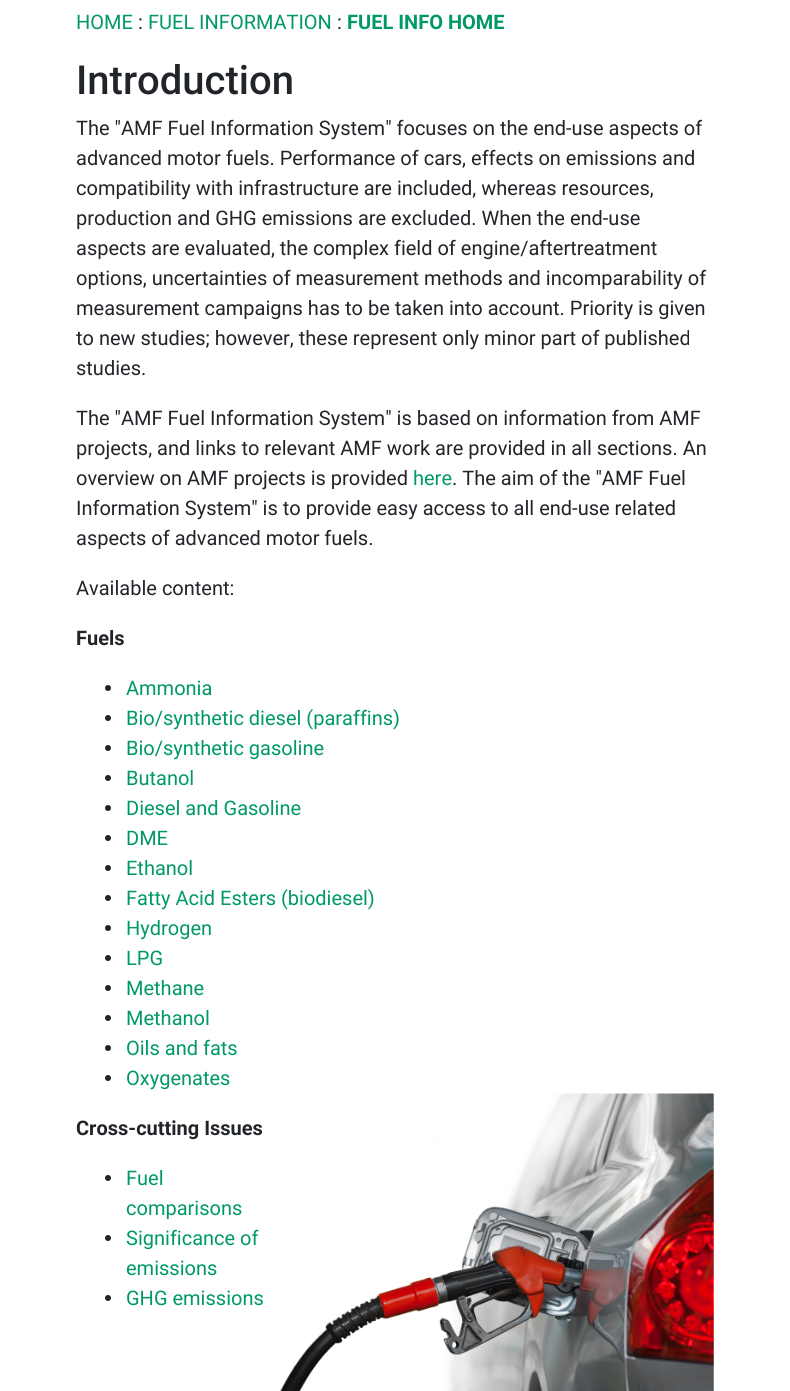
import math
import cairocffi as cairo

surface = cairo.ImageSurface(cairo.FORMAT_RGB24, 790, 1391)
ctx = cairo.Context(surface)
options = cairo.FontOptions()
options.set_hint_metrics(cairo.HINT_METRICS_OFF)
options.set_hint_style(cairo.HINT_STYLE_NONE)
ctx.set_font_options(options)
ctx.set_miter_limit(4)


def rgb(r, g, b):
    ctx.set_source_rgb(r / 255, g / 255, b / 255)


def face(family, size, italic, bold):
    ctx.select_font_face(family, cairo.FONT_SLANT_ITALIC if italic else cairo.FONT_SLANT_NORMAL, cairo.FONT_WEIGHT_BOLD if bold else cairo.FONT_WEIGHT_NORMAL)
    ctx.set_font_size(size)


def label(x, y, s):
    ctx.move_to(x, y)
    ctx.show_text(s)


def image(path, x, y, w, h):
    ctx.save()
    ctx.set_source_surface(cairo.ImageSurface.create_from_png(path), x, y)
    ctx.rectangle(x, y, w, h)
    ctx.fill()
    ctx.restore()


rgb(255, 255, 255)
ctx.paint()
face('Roboto', 20, 0, 0)
rgb(0, 153, 102)
label(76, 29, 'HOME')
rgb(33, 37, 41)
label(138, 29, ':')
rgb(0, 153, 102)
label(148, 29, 'FUEL INFORMATION')
rgb(33, 37, 41)
label(337, 29, ':')
face('Roboto', 20, 0, 1)
rgb(0, 153, 102)
label(347, 29, 'FUEL INFO HOME')
face('Roboto Medium', 40, 0, 0)
rgb(33, 37, 41)
label(76, 94, 'Introduction')
face('Roboto', 20, 0, 0)
label(76, 135, 'The "AMF Fuel Information System" focuses on the end-use aspects of')
label(76, 165, 'advanced motor fuels. Performance of cars, effects on emissions and')
label(76, 195, 'compatibility with infrastructure are included, whereas resources,')
label(76, 225, 'production and GHG emissions are excluded. When the end-use')
label(76, 255, 'aspects are evaluated, the complex field of engine/aftertreatment')
label(76, 285, 'options, uncertainties of measurement methods and incomparability of')
label(76, 315, 'measurement campaigns has to be taken into account. Priority is given')
label(76, 345, 'to new studies; however, these represent only minor part of published')
label(76, 375, 'studies.')
label(76, 425, 'The "AMF Fuel Information System" is based on information from AMF')
label(76, 455, 'projects, and links to relevant AMF work are provided in all sections. An')
label(76, 485, 'overview on AMF projects is provided')
rgb(0, 153, 102)
label(413, 485, 'here')
rgb(33, 37, 41)
label(452, 485, '. The aim of the "AMF Fuel')
label(76, 515, 'Information System" is to provide easy access to all end-use related')
label(76, 545, 'aspects of advanced motor fuels.')
label(76, 595, 'Available content:')
face('Roboto', 20, 0, 1)
label(76, 645, 'Fuels')
ctx.new_path()
ctx.arc(108, 688, 3, 0, 2 * math.pi)
ctx.fill()
face('Roboto', 20, 0, 0)
rgb(0, 153, 102)
label(126, 695, 'Ammonia')
rgb(33, 37, 41)
ctx.new_path()
ctx.arc(108, 718, 3, 0, 2 * math.pi)
ctx.fill()
rgb(0, 153, 102)
label(126, 725, 'Bio/synthetic diesel (paraffins)')
rgb(33, 37, 41)
ctx.new_path()
ctx.arc(108, 748, 3, 0, 2 * math.pi)
ctx.fill()
rgb(0, 153, 102)
label(126, 755, 'Bio/synthetic gasoline')
rgb(33, 37, 41)
ctx.new_path()
ctx.arc(108, 778, 3, 0, 2 * math.pi)
ctx.fill()
rgb(0, 153, 102)
label(126, 785, 'Butanol')
rgb(33, 37, 41)
ctx.new_path()
ctx.arc(108, 808, 3, 0, 2 * math.pi)
ctx.fill()
rgb(0, 153, 102)
label(126, 815, 'Diesel and Gasoline')
rgb(33, 37, 41)
ctx.new_path()
ctx.arc(108, 838, 3, 0, 2 * math.pi)
ctx.fill()
rgb(0, 153, 102)
label(126, 845, 'DME')
rgb(33, 37, 41)
ctx.new_path()
ctx.arc(108, 868, 3, 0, 2 * math.pi)
ctx.fill()
rgb(0, 153, 102)
label(126, 875, 'Ethanol')
rgb(33, 37, 41)
ctx.new_path()
ctx.arc(108, 898, 3, 0, 2 * math.pi)
ctx.fill()
rgb(0, 153, 102)
label(126, 905, 'Fatty Acid Esters (biodiesel)')
rgb(33, 37, 41)
ctx.new_path()
ctx.arc(108, 928, 3, 0, 2 * math.pi)
ctx.fill()
rgb(0, 153, 102)
label(126, 935, 'Hydrogen')
rgb(33, 37, 41)
ctx.new_path()
ctx.arc(108, 958, 3, 0, 2 * math.pi)
ctx.fill()
rgb(0, 153, 102)
label(126, 965, 'LPG')
rgb(33, 37, 41)
ctx.new_path()
ctx.arc(108, 988, 3, 0, 2 * math.pi)
ctx.fill()
rgb(0, 153, 102)
label(126, 995, 'Methane')
rgb(33, 37, 41)
ctx.new_path()
ctx.arc(108, 1018, 3, 0, 2 * math.pi)
ctx.fill()
rgb(0, 153, 102)
label(126, 1025, 'Methanol')
rgb(33, 37, 41)
ctx.new_path()
ctx.arc(108, 1048, 3, 0, 2 * math.pi)
ctx.fill()
rgb(0, 153, 102)
label(126, 1055, 'Oils and fats')
rgb(33, 37, 41)
ctx.new_path()
ctx.arc(108, 1078, 3, 0, 2 * math.pi)
ctx.fill()
rgb(0, 153, 102)
label(126, 1085, 'Oxygenates')
image('image0.png', 280, 1093, 434, 298)
face('Roboto', 20, 0, 1)
rgb(33, 37, 41)
label(76, 1135, 'Cross-cutting Issues')
ctx.new_path()
ctx.arc(108, 1178, 3, 0, 2 * math.pi)
ctx.fill()
face('Roboto', 20, 0, 0)
rgb(0, 153, 102)
label(126, 1185, 'Fuel')
label(126, 1215, 'comparisons')
rgb(33, 37, 41)
ctx.new_path()
ctx.arc(108, 1238, 3, 0, 2 * math.pi)
ctx.fill()
rgb(0, 153, 102)
label(126, 1245, 'Significance of')
label(126, 1275, 'emissions')
rgb(33, 37, 41)
ctx.new_path()
ctx.arc(108, 1298, 3, 0, 2 * math.pi)
ctx.fill()
rgb(0, 153, 102)
label(126, 1305, 'GHG emissions')
surface.write_to_png('render.png')
